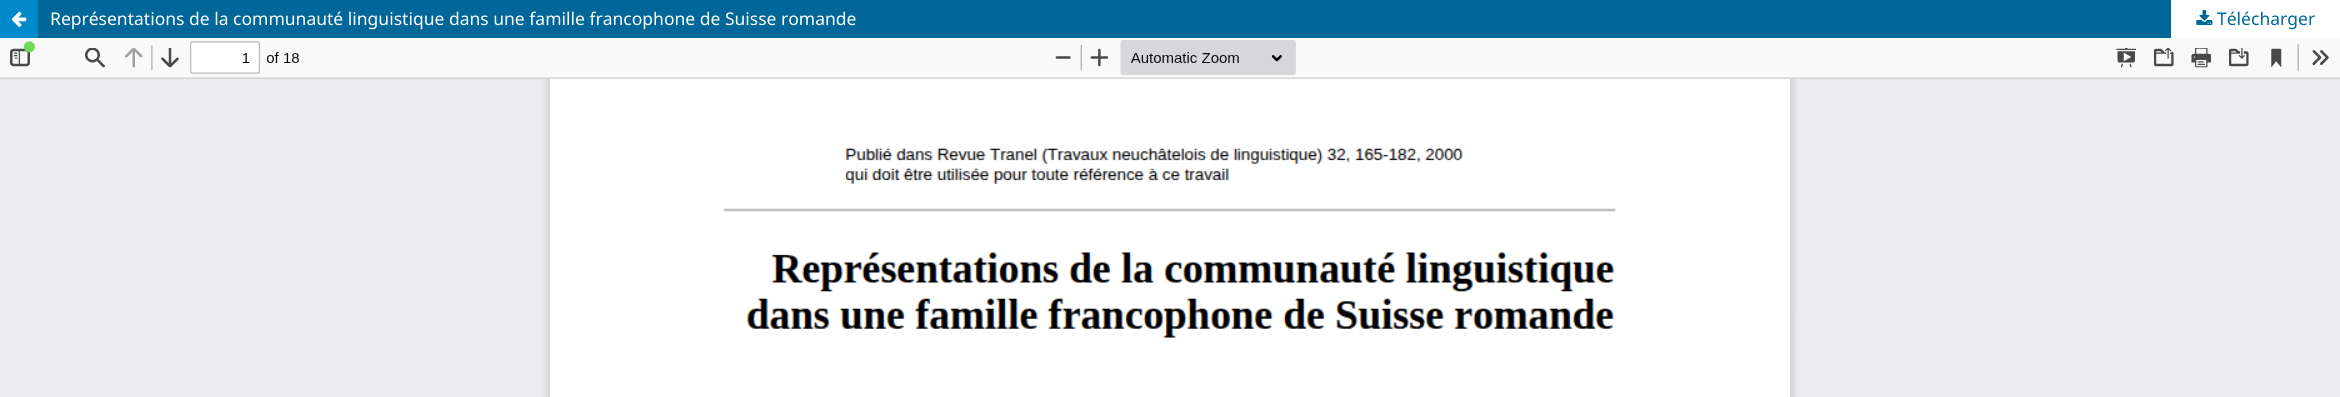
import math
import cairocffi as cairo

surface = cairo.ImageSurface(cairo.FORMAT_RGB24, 2340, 397)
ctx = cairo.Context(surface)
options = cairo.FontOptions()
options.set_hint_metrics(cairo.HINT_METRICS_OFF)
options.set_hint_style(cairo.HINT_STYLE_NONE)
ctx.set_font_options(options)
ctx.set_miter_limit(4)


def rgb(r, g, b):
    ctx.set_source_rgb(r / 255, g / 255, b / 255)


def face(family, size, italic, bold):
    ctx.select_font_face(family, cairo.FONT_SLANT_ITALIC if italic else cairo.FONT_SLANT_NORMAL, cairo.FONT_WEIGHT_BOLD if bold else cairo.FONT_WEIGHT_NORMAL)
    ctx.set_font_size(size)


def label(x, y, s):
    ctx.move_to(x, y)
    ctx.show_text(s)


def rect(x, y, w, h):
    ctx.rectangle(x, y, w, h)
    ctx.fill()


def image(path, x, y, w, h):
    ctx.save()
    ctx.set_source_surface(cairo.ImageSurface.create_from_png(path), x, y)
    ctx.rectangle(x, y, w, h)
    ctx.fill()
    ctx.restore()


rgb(255, 255, 255)
ctx.paint()
rgb(0, 103, 152)
rect(38, 0, 2133, 38)
rgb(0, 138, 203)
rect(0, 0, 38, 38)
image('image0.png', 11, 11, 16, 16)
face('Noto Sans', 17.5, 0, 0)
rgb(255, 255, 255)
label(50, 25, 'Représentations de la communauté linguistique dans une famille francophone de Suisse romande')
image('image1.png', 2196, 10, 17, 15)
rgb(0, 103, 152)
label(2217, 25, 'Télécharger')
image('image2.png', 0, 38, 2340, 359)
surface.write_to_png('render.png')
